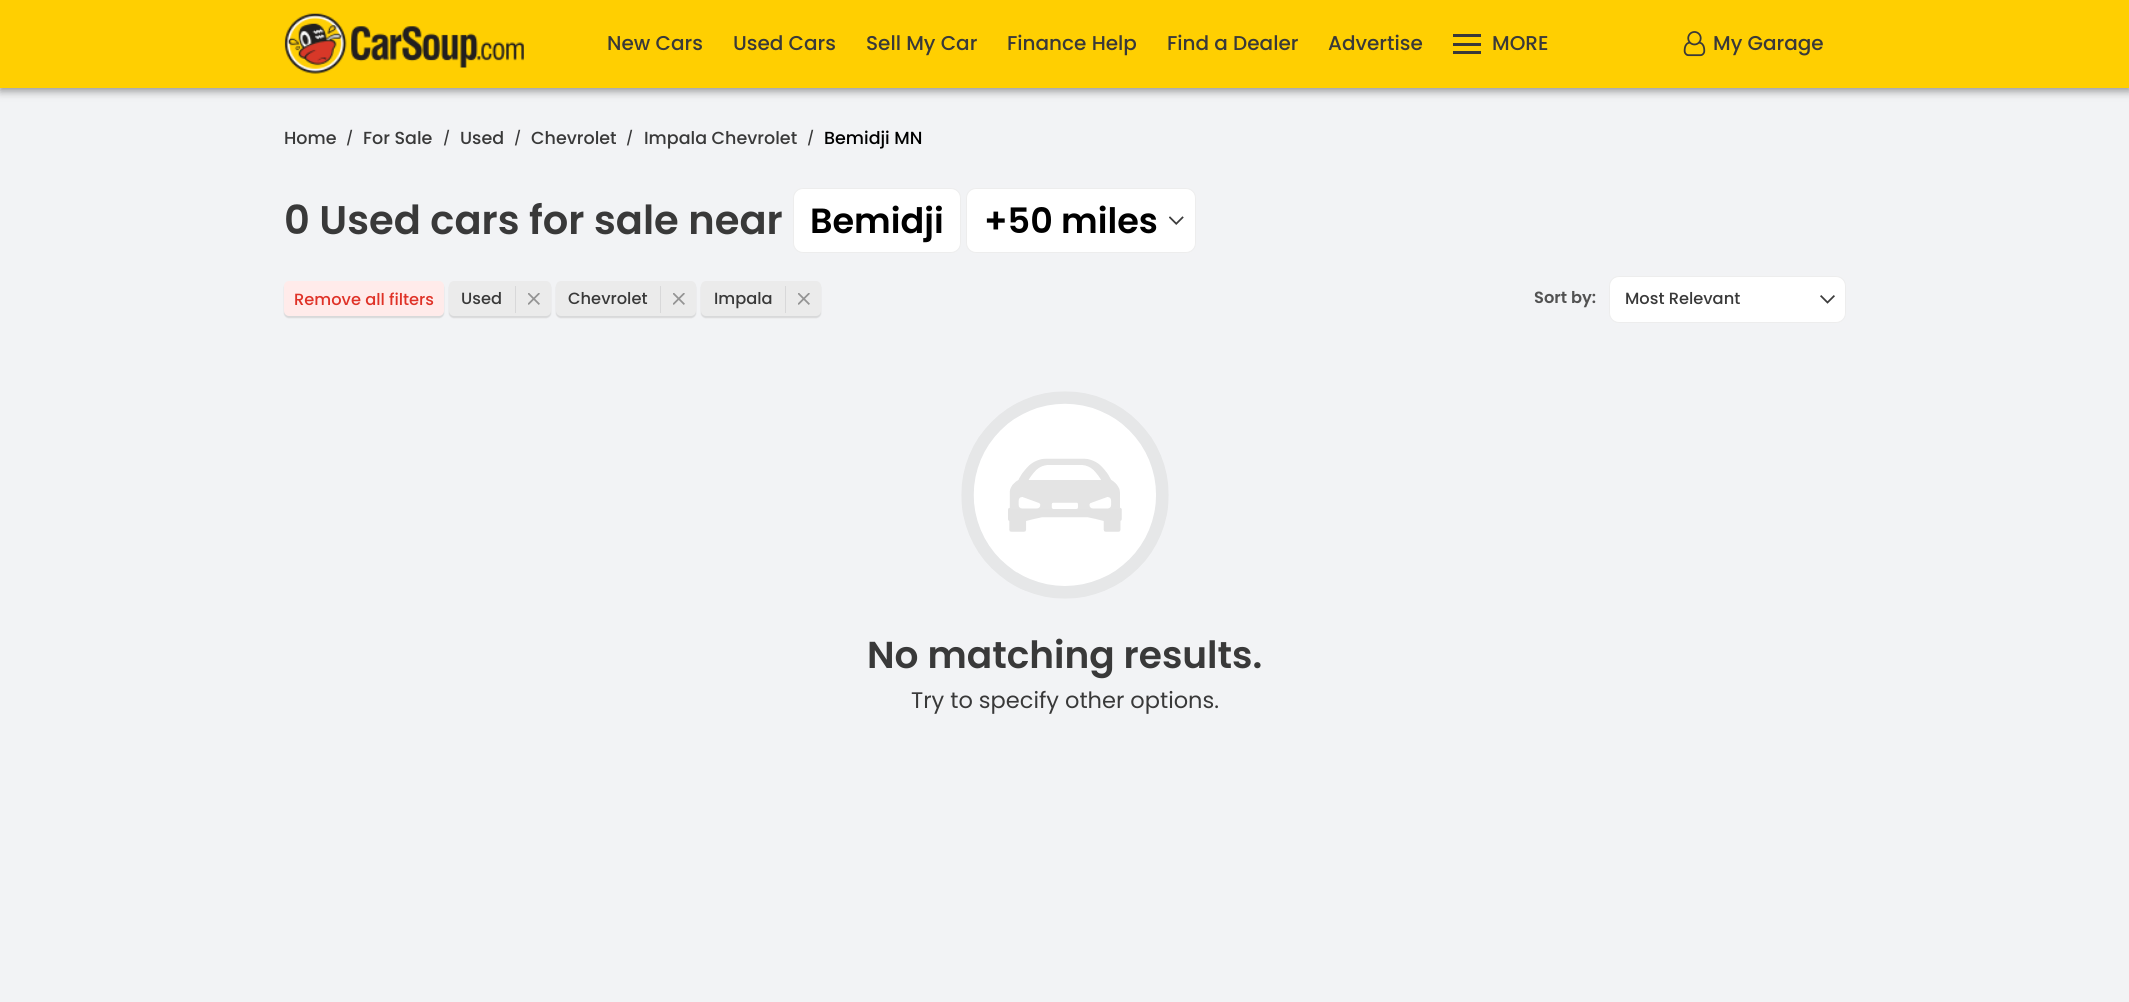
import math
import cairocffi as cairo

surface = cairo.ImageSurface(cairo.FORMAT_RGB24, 2129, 1002)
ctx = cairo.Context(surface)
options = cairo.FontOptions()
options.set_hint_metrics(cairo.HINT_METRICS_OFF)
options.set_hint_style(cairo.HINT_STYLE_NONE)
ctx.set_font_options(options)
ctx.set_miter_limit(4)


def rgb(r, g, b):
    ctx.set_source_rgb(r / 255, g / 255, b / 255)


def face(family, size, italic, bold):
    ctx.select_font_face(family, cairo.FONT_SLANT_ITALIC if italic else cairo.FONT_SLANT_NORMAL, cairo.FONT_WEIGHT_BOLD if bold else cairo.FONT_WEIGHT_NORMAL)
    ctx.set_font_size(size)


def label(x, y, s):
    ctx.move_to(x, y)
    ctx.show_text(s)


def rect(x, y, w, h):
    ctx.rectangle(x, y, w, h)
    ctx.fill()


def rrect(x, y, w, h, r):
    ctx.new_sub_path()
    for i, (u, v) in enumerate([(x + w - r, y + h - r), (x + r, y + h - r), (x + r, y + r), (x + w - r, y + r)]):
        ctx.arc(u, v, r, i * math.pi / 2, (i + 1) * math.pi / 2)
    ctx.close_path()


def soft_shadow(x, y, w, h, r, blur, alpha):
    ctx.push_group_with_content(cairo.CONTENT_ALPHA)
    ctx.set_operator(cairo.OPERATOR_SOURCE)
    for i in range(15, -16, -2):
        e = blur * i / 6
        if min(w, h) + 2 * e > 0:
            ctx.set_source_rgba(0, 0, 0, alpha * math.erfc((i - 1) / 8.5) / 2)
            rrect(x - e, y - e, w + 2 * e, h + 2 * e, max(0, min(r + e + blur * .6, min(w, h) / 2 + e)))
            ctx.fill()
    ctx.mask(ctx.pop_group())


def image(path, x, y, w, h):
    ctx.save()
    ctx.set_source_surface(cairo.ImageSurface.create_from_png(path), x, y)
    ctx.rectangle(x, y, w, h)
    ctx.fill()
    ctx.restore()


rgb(242, 243, 245)
ctx.paint()
rgb(0, 0, 0)
soft_shadow(0, 4, 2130, 87, 0, 4.5, 0.4)
rgb(255, 207, 1)
rect(0, 0, 2129, 88)
image('image0.png', 284, 13, 240, 61)
face('Poppins Medium', 20, 0, 0)
rgb(57, 57, 57)
label(607, 50, 'New Cars')
label(733, 50, 'Used Cars')
label(866, 50, 'Sell My Car')
label(1007, 50, 'Finance Help')
label(1167, 50, 'Find a Dealer')
label(1328, 50, 'Advertise')
rect(1453, 34, 28, 3)
rect(1453, 43, 28, 3)
rect(1453, 51, 28, 3)
label(1492, 50, 'MORE')
image('image1.png', 1683, 31, 23, 26)
label(1713, 50, 'My Garage')
face('Poppins Medium', 17.5, 0, 0)
label(284, 144, 'Home')
face('Poppins Medium', 14, 0, 0)
label(346, 143, '/')
face('Poppins Medium', 17.5, 0, 0)
label(363, 144, 'For Sale')
face('Poppins Medium', 14, 0, 0)
label(443, 143, '/')
face('Poppins Medium', 17.5, 0, 0)
label(460, 144, 'Used')
face('Poppins Medium', 14, 0, 0)
label(514, 143, '/')
face('Poppins Medium', 17.5, 0, 0)
label(531, 144, 'Chevrolet')
face('Poppins Medium', 14, 0, 0)
label(626, 143, '/')
face('Poppins Medium', 17.5, 0, 0)
label(644, 144, 'Impala Chevrolet')
face('Poppins Medium', 14, 0, 0)
label(807, 143, '/')
face('Poppins Medium', 17.5, 0, 0)
rgb(0, 0, 0)
label(824, 144, 'Bemidji MN')
face('Poppins SemiBold', 40, 0, 0)
rgb(57, 57, 57)
label(284, 234, '0 Used cars for sale near')
rgb(255, 255, 255)
rrect(793.5, 188.5, 167, 64, 9.5)
ctx.fill_preserve()
rgb(237, 237, 237)
ctx.set_line_width(1)
ctx.stroke()
face('Poppins SemiBold', 35, 0, 0)
rgb(0, 0, 0)
label(810, 233, 'Bemidji')
rgb(255, 255, 255)
rrect(966.5, 188.5, 229, 64, 9.5)
ctx.fill_preserve()
rgb(237, 237, 237)
ctx.stroke()
rgb(0, 0, 0)
label(984, 233, '+50 miles')
image('image2.png', 1169, 216, 15, 9)
rgb(190, 190, 190)
soft_shadow(284, 283, 160, 35, 5, 0.5, 0.5)
rgb(255, 235, 234)
rrect(284, 281, 160, 35, 5)
ctx.fill()
face('Poppins Medium', 16.25, 0, 0)
rgb(223, 50, 39)
label(294, 305, 'Remove all filters')
rgb(190, 190, 190)
soft_shadow(449, 283, 102, 35, 5, 0.5, 0.5)
rgb(235, 235, 235)
rrect(449, 281, 102, 35, 5)
ctx.fill()
rgb(216, 216, 217)
rect(515, 286, 1, 27)
rgb(57, 57, 57)
label(461, 304, 'Used')
image('image3.png', 528, 293, 12, 12)
rgb(190, 190, 190)
soft_shadow(556, 283, 140, 35, 5, 0.5, 0.5)
rgb(235, 235, 235)
rrect(556, 281, 140, 35, 5)
ctx.fill()
rgb(216, 216, 217)
rect(660, 286, 1, 27)
rgb(57, 57, 57)
label(568, 304, 'Chevrolet')
image('image3.png', 673, 293, 12, 12)
rgb(190, 190, 190)
soft_shadow(701, 283, 120, 35, 5, 0.5, 0.5)
rgb(235, 235, 235)
rrect(701, 281, 120, 35, 5)
ctx.fill()
rgb(216, 216, 217)
rect(785, 286, 1, 27)
rgb(57, 57, 57)
label(714, 304, 'Impala')
image('image3.png', 798, 293, 12, 12)
face('Poppins SemiBold', 16.25, 0, 0)
rgb(82, 82, 82)
label(1534, 303, 'Sort by:')
rgb(255, 255, 255)
rrect(1609.5, 276.5, 236, 46, 9.5)
ctx.fill_preserve()
rgb(237, 237, 237)
ctx.stroke()
face('Poppins Medium', 16.25, 0, 0)
rgb(57, 57, 57)
label(1625, 304, 'Most Relevant')
image('image4.png', 1820, 295, 15, 9)
image('image5.png', 961, 391, 208, 208)
face('Poppins SemiBold', 37.5, 0, 0)
label(867, 668, 'No matching results.')
face('Poppins', 22.5, 0, 0)
label(911, 708, 'Try to specify other options.')
surface.write_to_png('render.png')
